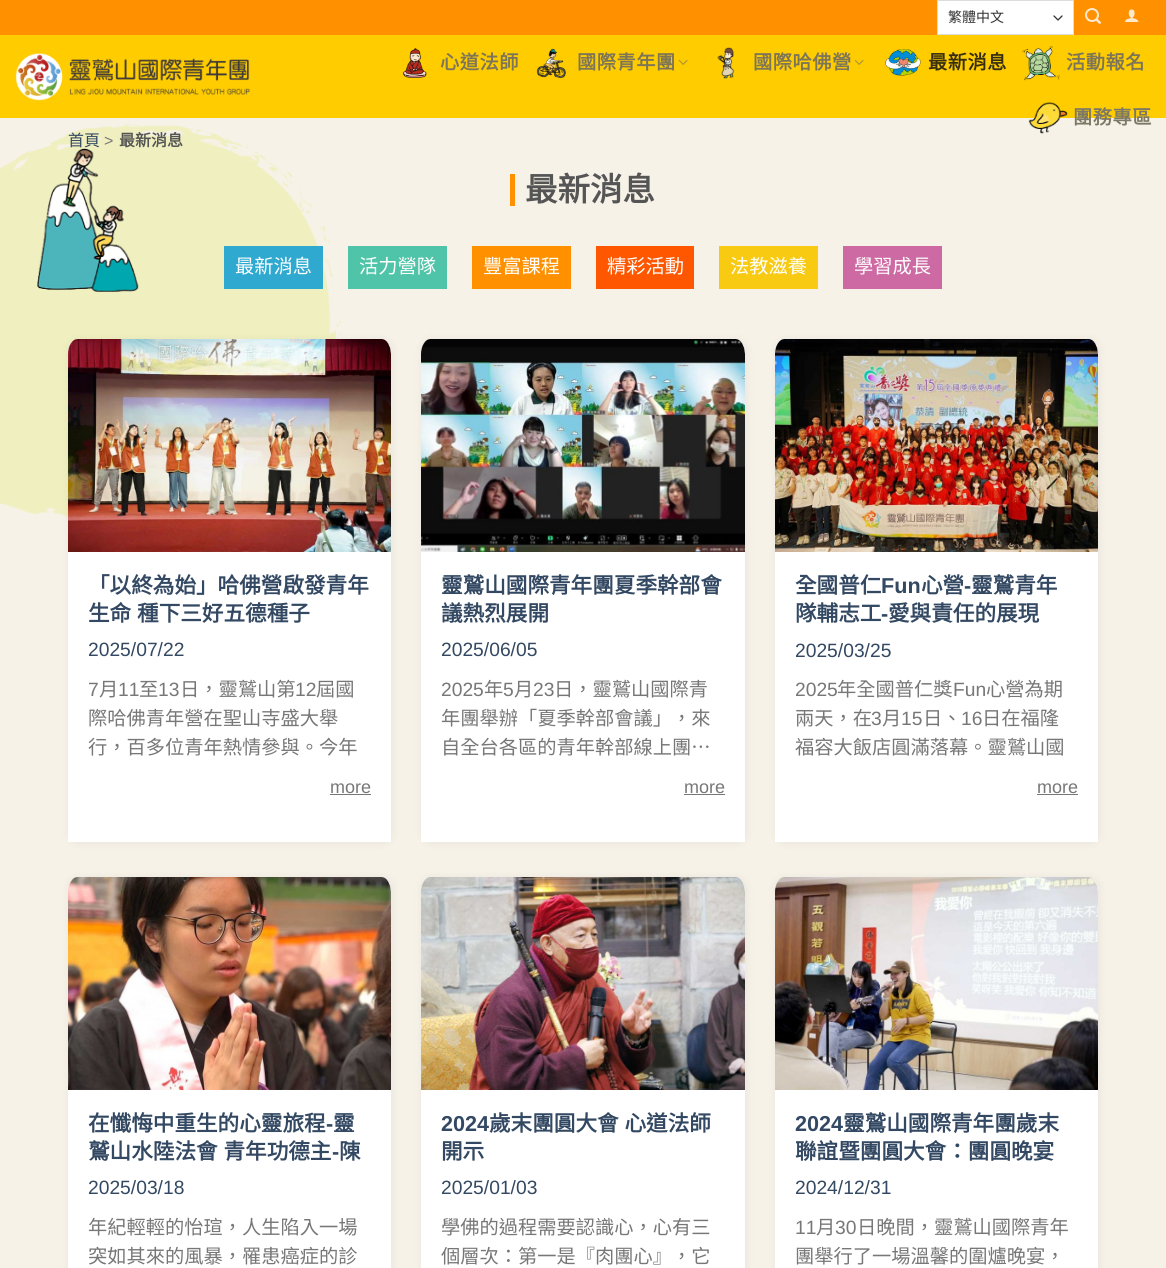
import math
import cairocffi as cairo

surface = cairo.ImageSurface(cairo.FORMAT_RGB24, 1166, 1268)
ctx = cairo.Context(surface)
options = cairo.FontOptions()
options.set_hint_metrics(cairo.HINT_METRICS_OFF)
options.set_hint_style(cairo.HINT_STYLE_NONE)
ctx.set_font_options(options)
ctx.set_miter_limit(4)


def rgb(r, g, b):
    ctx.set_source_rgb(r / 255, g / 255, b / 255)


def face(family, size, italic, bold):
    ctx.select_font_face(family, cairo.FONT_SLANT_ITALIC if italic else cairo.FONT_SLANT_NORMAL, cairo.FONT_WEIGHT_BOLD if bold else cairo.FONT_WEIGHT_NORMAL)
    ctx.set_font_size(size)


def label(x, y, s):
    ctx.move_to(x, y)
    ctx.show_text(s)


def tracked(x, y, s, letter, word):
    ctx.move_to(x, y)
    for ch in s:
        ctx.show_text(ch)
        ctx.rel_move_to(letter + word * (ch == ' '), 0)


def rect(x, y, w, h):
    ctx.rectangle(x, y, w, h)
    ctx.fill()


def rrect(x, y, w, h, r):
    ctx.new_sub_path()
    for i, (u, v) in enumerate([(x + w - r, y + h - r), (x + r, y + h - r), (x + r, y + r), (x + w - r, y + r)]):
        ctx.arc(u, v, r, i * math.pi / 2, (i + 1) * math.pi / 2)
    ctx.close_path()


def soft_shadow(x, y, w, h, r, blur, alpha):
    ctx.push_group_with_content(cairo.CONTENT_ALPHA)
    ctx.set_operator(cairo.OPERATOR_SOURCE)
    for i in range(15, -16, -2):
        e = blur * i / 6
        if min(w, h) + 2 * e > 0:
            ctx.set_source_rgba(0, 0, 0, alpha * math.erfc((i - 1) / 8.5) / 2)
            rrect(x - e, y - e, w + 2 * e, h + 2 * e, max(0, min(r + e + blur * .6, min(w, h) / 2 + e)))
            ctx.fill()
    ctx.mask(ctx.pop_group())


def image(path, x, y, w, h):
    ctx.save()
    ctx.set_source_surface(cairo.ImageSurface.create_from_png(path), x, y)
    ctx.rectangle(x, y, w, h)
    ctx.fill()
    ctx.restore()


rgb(246, 242, 232)
ctx.paint()
rgb(255, 145, 0)
rect(0, 0, 1166, 35)
rgb(255, 255, 255)
rect(938, 1, 135, 33)
ctx.new_path()
ctx.move_to(1054, 16)
ctx.line_to(1058, 20)
ctx.line_to(1062, 16)
rgb(51, 51, 51)
ctx.set_line_width(1.3)
ctx.set_line_cap(cairo.LINE_CAP_ROUND)
ctx.set_line_join(cairo.LINE_JOIN_ROUND)
ctx.stroke()
ctx.rectangle(937.5, 0.5, 136, 34)
rgb(221, 221, 221)
ctx.set_line_width(1)
ctx.set_line_cap(cairo.LINE_CAP_BUTT)
ctx.set_line_join(cairo.LINE_JOIN_MITER)
ctx.stroke()
face('Noto Sans CJK TC', 14, 0, 0)
rgb(51, 51, 51)
label(948, 22, '繁體中文')
image('image0.png', 1085, 8, 16, 16)
image('image1.png', 1125, 9, 14, 13)
rgb(255, 204, 0)
rect(0, 35, 1166, 83)
image('image2.png', 15, 53, 235, 48)
image('image3.png', 402, 48, 25, 30)
face('Noto Sans CJK TC', 19.25, 0, 1)
rgb(125, 117, 87)
tracked(440, 69, '心道法師', 0.5, 0)
image('image4.png', 536, 48, 30, 30)
tracked(577, 69, '國際青年團', 0.5, 0)
image('image5.png', 678, 59, 10, 6)
image('image6.png', 717, 47, 18, 32)
tracked(753, 69, '國際哈佛營', 0.5, 0)
image('image5.png', 854, 59, 10, 6)
image('image7.png', 885, 48, 36, 28)
rgb(54, 46, 15)
tracked(928, 69, '最新消息', 0.5, 0)
image('image8.png', 1022, 46, 38, 35)
rgb(125, 117, 87)
tracked(1066, 69, '活動報名', 0.5, 0)
image('image9.png', 1028, 102, 40, 32)
rgb(124, 120, 101)
tracked(1073, 124, '團務專區', 0.5, 0)
image('image10.png', 0, 124, 342, 393)
face('Noto Sans CJK TC', 16, 0, 0)
rgb(51, 72, 98)
label(68, 146, '首頁')
face('Liberation Sans', 16, 0, 0)
rgb(119, 119, 119)
label(104, 146, '>')
face('Noto Sans CJK TC', 16, 0, 1)
rgb(85, 85, 85)
label(119, 146, '最新消息')
rgb(255, 145, 0)
rect(510, 174, 5, 32)
face('Noto Sans CJK TC', 32.5, 0, 1)
rgb(85, 85, 85)
label(525, 201, '最新消息')
rgb(47, 169, 207)
rect(224, 246, 99, 43)
face('Noto Sans CJK TC', 19.25, 0, 0)
rgb(255, 255, 255)
label(235, 273, '最新消息')
rgb(80, 196, 168)
rect(348, 246, 99, 43)
rgb(255, 255, 255)
label(359, 273, '活力營隊')
rgb(255, 145, 0)
rect(472, 246, 99, 43)
rgb(255, 255, 255)
label(483, 273, '豐富課程')
rgb(255, 87, 0)
rect(596, 246, 98, 43)
rgb(255, 255, 255)
label(607, 273, '精彩活動')
rgb(248, 202, 18)
rect(719, 246, 99, 43)
rgb(255, 255, 255)
label(730, 273, '法教滋養')
rgb(206, 106, 163)
rect(843, 246, 99, 43)
rgb(255, 255, 255)
label(854, 273, '學習成長')
rgb(17, 17, 26)
soft_shadow(68, 339, 325, 505, 11, 4, 0.05)
rgb(255, 255, 255)
ctx.new_path()
ctx.move_to(78, 339)
ctx.line_to(381, 339)
ctx.curve_to(387, 339, 391, 346, 391, 354)
ctx.line_to(391, 842)
ctx.line_to(68, 842)
ctx.line_to(68, 354)
ctx.curve_to(68, 346, 72, 339, 78, 339)
ctx.close_path()
ctx.fill()
image('image11.png', 68, 339, 323, 213)
face('Noto Sans CJK TC', 21.6, 0, 1)
rgb(51, 72, 98)
label(88, 593, '「以終為始」哈佛營啟發青年')
tracked(88, 621, '生命 種下三好五德種子', 0, 1)
face('Liberation Sans', 19.25, 0, 0)
label(88, 656, '2025/07/22')
rgb(119, 119, 119)
label(88, 696, '7')
face('Noto Sans CJK TC', 19.25, 0, 0)
label(99, 696, '月')
face('Liberation Sans', 19.25, 0, 0)
label(118, 696, '11')
face('Noto Sans CJK TC', 19.25, 0, 0)
label(139, 696, '至')
face('Liberation Sans', 19.25, 0, 0)
label(158, 696, '13')
face('Noto Sans CJK TC', 19.25, 0, 0)
label(180, 696, '日，靈鷲山第')
face('Liberation Sans', 19.25, 0, 0)
label(295, 696, '12')
face('Noto Sans CJK TC', 19.25, 0, 0)
label(316, 696, '屆國')
label(88, 725, '際哈佛青年營在聖山寺盛大舉')
label(88, 754, '行，百多位青年熱情參與。今年')
face('Liberation Sans', 18, 0, 0)
label(330, 793, 'more')
rect(330, 794, 41, 1)
rgb(17, 17, 26)
soft_shadow(421, 339, 326, 505, 11, 4, 0.05)
rgb(255, 255, 255)
ctx.new_path()
ctx.move_to(431, 339)
ctx.line_to(735, 339)
ctx.curve_to(741, 339, 745, 346, 745, 354)
ctx.line_to(745, 842)
ctx.line_to(421, 842)
ctx.line_to(421, 354)
ctx.curve_to(421, 346, 425, 339, 431, 339)
ctx.close_path()
ctx.fill()
image('image12.png', 421, 339, 324, 213)
face('Noto Sans CJK TC', 21.6, 0, 1)
rgb(51, 72, 98)
label(441, 593, '靈鷲山國際青年團夏季幹部會')
label(441, 621, '議熱烈展開')
face('Liberation Sans', 19.25, 0, 0)
label(441, 656, '2025/06/05')
rgb(119, 119, 119)
label(441, 696, '2025')
face('Noto Sans CJK TC', 19.25, 0, 0)
label(484, 696, '年')
face('Liberation Sans', 19.25, 0, 0)
label(503, 696, '5')
face('Noto Sans CJK TC', 19.25, 0, 0)
label(514, 696, '月')
face('Liberation Sans', 19.25, 0, 0)
label(533, 696, '23')
face('Noto Sans CJK TC', 19.25, 0, 0)
label(554, 696, '日，靈鷲山國際青')
label(441, 725, '年團舉辦「夏季幹部會議」，來')
label(441, 754, '自全台各區的青年幹部線上團…')
face('Liberation Sans', 18, 0, 0)
label(684, 793, 'more')
rect(684, 794, 41, 1)
rgb(17, 17, 26)
soft_shadow(775, 339, 325, 505, 11, 4, 0.05)
rgb(255, 255, 255)
ctx.new_path()
ctx.move_to(785, 339)
ctx.line_to(1088, 339)
ctx.curve_to(1094, 339, 1098, 346, 1098, 354)
ctx.line_to(1098, 842)
ctx.line_to(775, 842)
ctx.line_to(775, 354)
ctx.curve_to(775, 346, 779, 339, 785, 339)
ctx.close_path()
ctx.fill()
image('image13.png', 775, 339, 323, 213)
face('Noto Sans CJK TC', 21.6, 0, 1)
rgb(51, 72, 98)
label(795, 593, '全國普仁')
face('Liberation Sans', 21.6, 0, 1)
label(881, 593, 'Fun')
face('Noto Sans CJK TC', 21.6, 0, 1)
label(921, 593, '心營')
face('Liberation Sans', 21.6, 0, 1)
label(964, 593, '-')
face('Noto Sans CJK TC', 21.6, 0, 1)
label(971, 593, '靈鷲青年')
label(795, 621, '隊輔志工')
face('Liberation Sans', 21.6, 0, 1)
label(881, 621, '-')
face('Noto Sans CJK TC', 21.6, 0, 1)
label(888, 621, '愛與責任的展現')
face('Liberation Sans', 19.25, 0, 0)
label(795, 657, '2025/03/25')
rgb(119, 119, 119)
label(795, 696, '2025')
face('Noto Sans CJK TC', 19.25, 0, 0)
label(837, 696, '年全國普仁獎')
face('Liberation Sans', 19.25, 0, 0)
label(953, 696, 'Fun')
face('Noto Sans CJK TC', 19.25, 0, 0)
label(986, 696, '心營為期')
label(795, 725, '兩天，在')
face('Liberation Sans', 19.25, 0, 0)
label(871, 725, '3')
face('Noto Sans CJK TC', 19.25, 0, 0)
label(882, 725, '月')
face('Liberation Sans', 19.25, 0, 0)
label(901, 725, '15')
face('Noto Sans CJK TC', 19.25, 0, 0)
label(923, 725, '日、')
face('Liberation Sans', 19.25, 0, 0)
label(961, 725, '16')
face('Noto Sans CJK TC', 19.25, 0, 0)
label(982, 725, '日在福隆')
label(795, 754, '福容大飯店圓滿落幕。靈鷲山國')
face('Liberation Sans', 18, 0, 0)
label(1037, 793, 'more')
rect(1037, 794, 41, 1)
rgb(17, 17, 26)
soft_shadow(68, 877, 325, 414, 11, 4, 0.05)
rgb(255, 255, 255)
ctx.new_path()
ctx.move_to(78, 877)
ctx.line_to(381, 877)
ctx.curve_to(387, 877, 391, 884, 391, 892)
ctx.line_to(391, 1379)
ctx.line_to(68, 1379)
ctx.line_to(68, 892)
ctx.curve_to(68, 884, 72, 877, 78, 877)
ctx.close_path()
ctx.fill()
image('image14.png', 68, 877, 323, 213)
face('Noto Sans CJK TC', 21.6, 0, 1)
rgb(51, 72, 98)
label(88, 1131, '在懺悔中重生的心靈旅程')
face('Liberation Sans', 21.6, 0, 1)
label(326, 1131, '-')
face('Noto Sans CJK TC', 21.6, 0, 1)
label(333, 1131, '靈')
tracked(88, 1159, '鷲山水陸法會 青年功德主', 0, 1)
face('Liberation Sans', 21.6, 0, 1)
label(332, 1159, '-')
face('Noto Sans CJK TC', 21.6, 0, 1)
label(339, 1159, '陳')
face('Liberation Sans', 19.25, 0, 0)
label(88, 1194, '2025/03/18')
face('Noto Sans CJK TC', 19.25, 0, 0)
rgb(119, 119, 119)
label(88, 1234, '年紀輕輕的怡瑄，人生陷入一場')
label(88, 1263, '突如其來的風暴，罹患癌症的診')
rgb(17, 17, 26)
soft_shadow(421, 877, 326, 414, 11, 4, 0.05)
rgb(255, 255, 255)
ctx.new_path()
ctx.move_to(431, 877)
ctx.line_to(735, 877)
ctx.curve_to(741, 877, 745, 884, 745, 892)
ctx.line_to(745, 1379)
ctx.line_to(421, 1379)
ctx.line_to(421, 892)
ctx.curve_to(421, 884, 425, 877, 431, 877)
ctx.close_path()
ctx.fill()
image('image15.png', 421, 877, 324, 213)
face('Liberation Sans', 21.6, 0, 1)
rgb(51, 72, 98)
label(441, 1131, '2024')
face('Noto Sans CJK TC', 21.6, 0, 1)
tracked(489, 1131, '歲末團圓大會 心道法師', 0, 1)
label(441, 1159, '開示')
face('Liberation Sans', 19.25, 0, 0)
label(441, 1194, '2025/01/03')
face('Noto Sans CJK TC', 19.25, 0, 0)
rgb(119, 119, 119)
label(441, 1234, '學佛的過程需要認識心，心有三')
label(441, 1263, '個層次：第一是『肉團心』，它')
rgb(17, 17, 26)
soft_shadow(775, 877, 325, 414, 11, 4, 0.05)
rgb(255, 255, 255)
ctx.new_path()
ctx.move_to(785, 877)
ctx.line_to(1088, 877)
ctx.curve_to(1094, 877, 1098, 884, 1098, 892)
ctx.line_to(1098, 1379)
ctx.line_to(775, 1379)
ctx.line_to(775, 892)
ctx.curve_to(775, 884, 779, 877, 785, 877)
ctx.close_path()
ctx.fill()
image('image16.png', 775, 877, 323, 213)
face('Liberation Sans', 21.6, 0, 1)
rgb(51, 72, 98)
label(795, 1131, '2024')
face('Noto Sans CJK TC', 21.6, 0, 1)
label(843, 1131, '靈鷲山國際青年團歲末')
label(795, 1159, '聯誼暨團圓大會：團圓晚宴')
face('Liberation Sans', 19.25, 0, 0)
label(795, 1194, '2024/12/31')
rgb(119, 119, 119)
label(795, 1234, '11')
face('Noto Sans CJK TC', 19.25, 0, 0)
label(816, 1234, '月')
face('Liberation Sans', 19.25, 0, 0)
label(835, 1234, '30')
face('Noto Sans CJK TC', 19.25, 0, 0)
label(857, 1234, '日晚間，靈鷲山國際青年')
label(795, 1263, '團舉行了一場溫馨的圍爐晚宴，')
surface.write_to_png('render.png')
